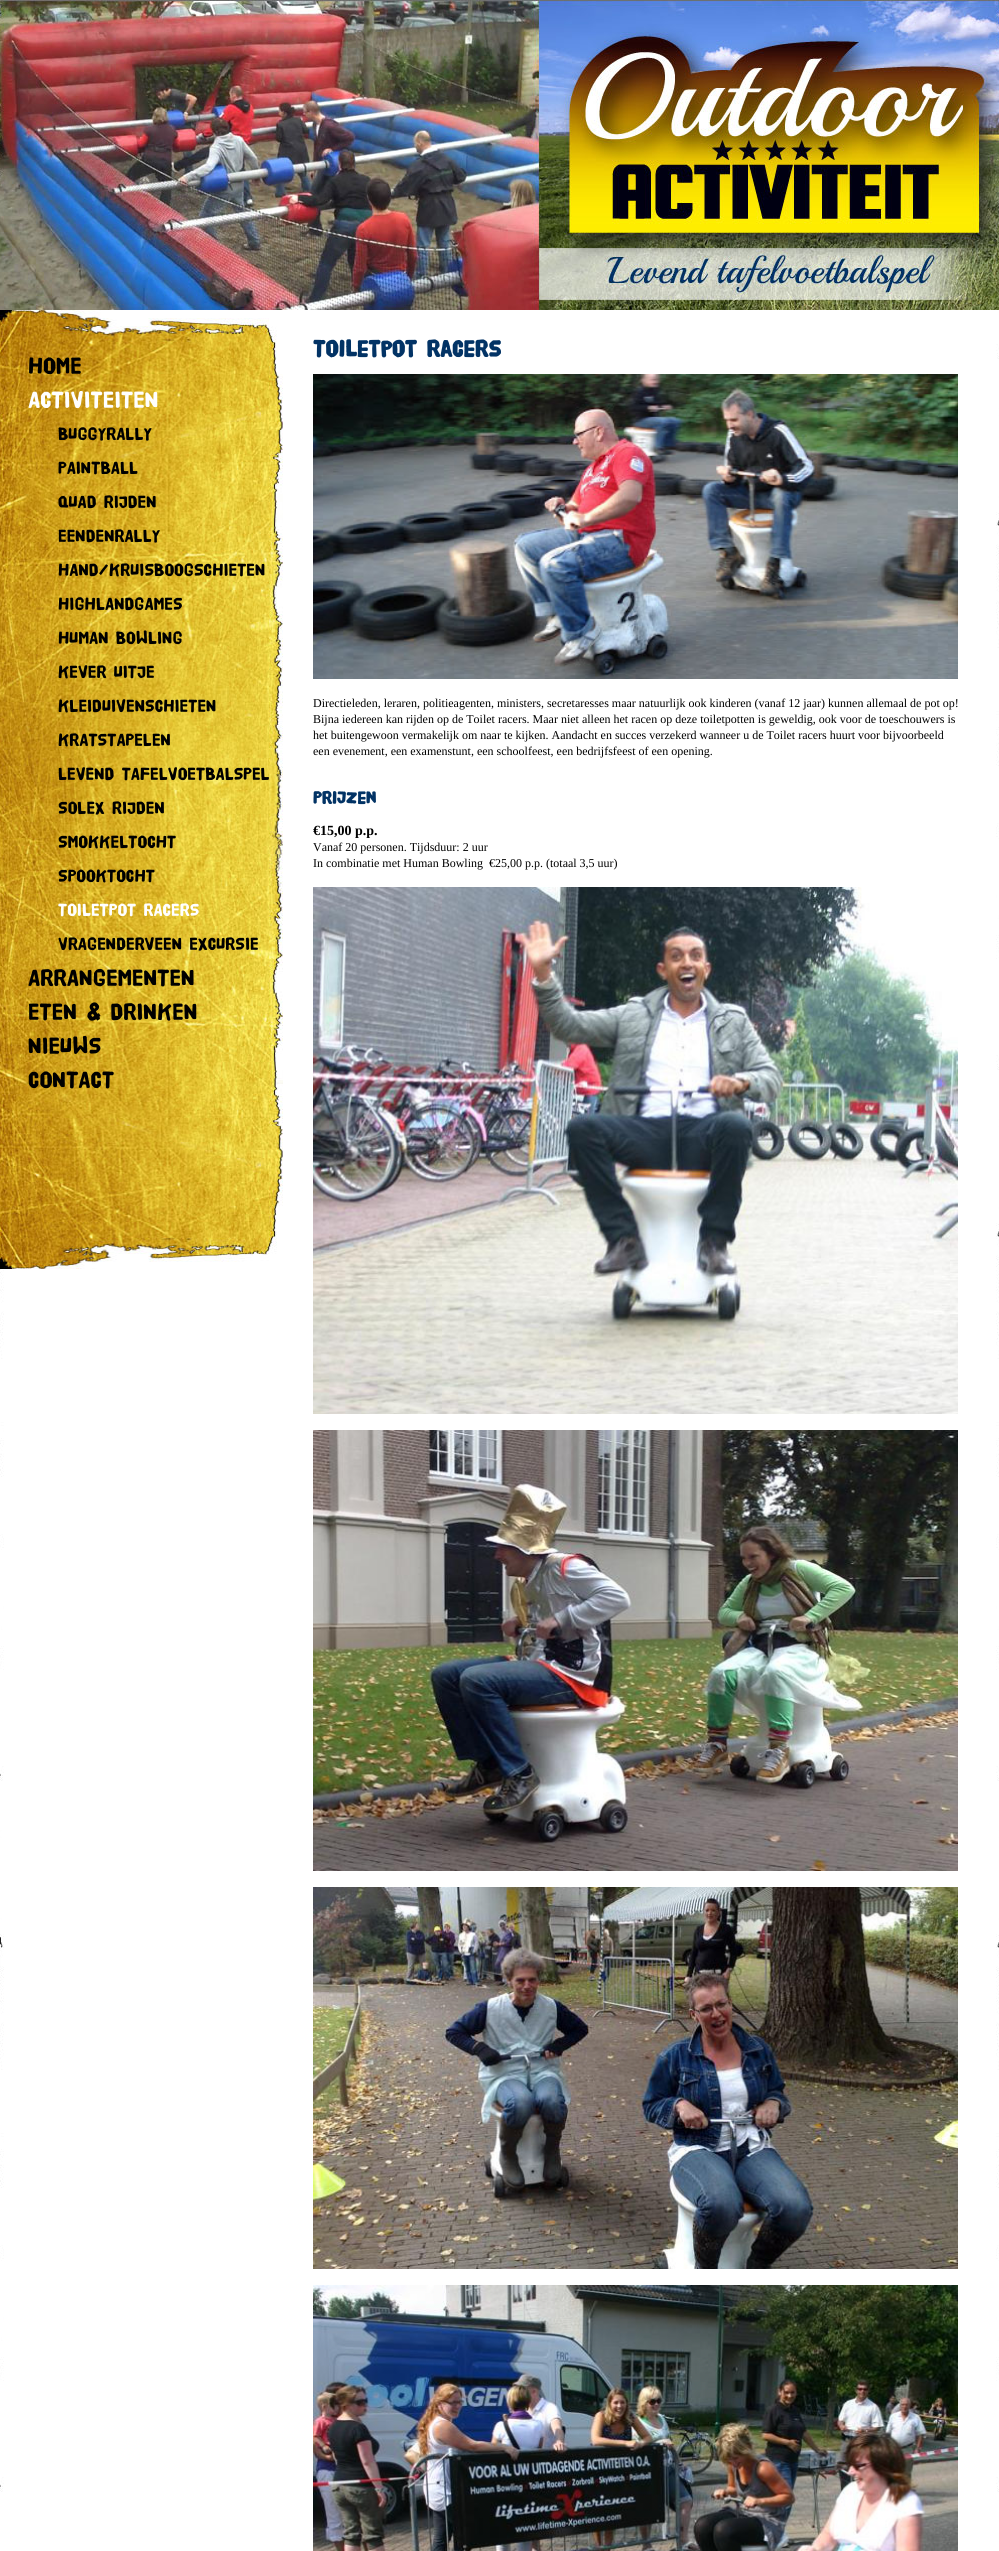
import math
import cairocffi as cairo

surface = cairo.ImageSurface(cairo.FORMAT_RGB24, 999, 2551)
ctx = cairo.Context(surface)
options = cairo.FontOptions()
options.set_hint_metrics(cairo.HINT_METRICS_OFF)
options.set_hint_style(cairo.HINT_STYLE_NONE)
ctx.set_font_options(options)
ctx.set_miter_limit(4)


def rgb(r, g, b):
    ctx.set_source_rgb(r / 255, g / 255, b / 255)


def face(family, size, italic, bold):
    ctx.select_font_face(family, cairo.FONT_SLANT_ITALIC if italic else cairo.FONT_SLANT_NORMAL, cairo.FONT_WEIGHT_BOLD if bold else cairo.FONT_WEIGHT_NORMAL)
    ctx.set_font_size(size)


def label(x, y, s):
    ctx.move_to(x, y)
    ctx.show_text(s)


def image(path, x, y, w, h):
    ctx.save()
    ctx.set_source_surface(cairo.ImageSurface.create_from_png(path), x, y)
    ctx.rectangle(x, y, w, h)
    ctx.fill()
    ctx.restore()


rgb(255, 255, 255)
ctx.paint()
image('image0.png', 0, 310, 999, 2182)
image('image1.png', 0, 0, 999, 310)
image('image2.png', 0, 310, 283, 959)
face('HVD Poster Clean', 24, 0, 0)
rgb(0, 0, 0)
label(28, 374, 'HOME')
rgb(255, 255, 255)
label(28, 408, 'ACTIVITEITEN')
face('HVD Poster Clean', 18, 0, 0)
rgb(0, 0, 0)
label(58, 440, 'BUGGYRALLY')
label(58, 474, 'PAINTBALL')
label(58, 508, 'QUAD RIJDEN')
label(58, 542, 'EENDENRALLY')
label(58, 576, 'HAND/KRUISBOOGSCHIETEN')
label(58, 610, 'HIGHLANDGAMES')
label(58, 644, 'HUMAN BOWLING')
label(58, 678, 'KEVER UITJE')
label(58, 712, 'KLEIDUIVENSCHIETEN')
label(58, 746, 'KRATSTAPELEN')
label(58, 780, 'LEVEND TAFELVOETBALSPEL')
label(58, 814, 'SOLEX RIJDEN')
label(58, 848, 'SMOKKELTOCHT')
label(58, 882, 'SPOOKTOCHT')
rgb(255, 255, 255)
label(58, 916, 'TOILETPOT RACERS')
rgb(0, 0, 0)
label(58, 950, 'VRAGENDERVEEN EXCURSIE')
face('HVD Poster Clean', 24, 0, 0)
label(28, 986, 'ARRANGEMENTEN')
label(28, 1020, 'ETEN & DRINKEN')
label(28, 1054, 'NIEUWS')
label(28, 1088, 'CONTACT')
face('HVD Poster Clean', 24, 0, 1)
rgb(2, 51, 101)
label(313, 357, 'Toiletpot racers')
image('image3.png', 313, 374, 645, 305)
face('Liberation Serif', 12, 0, 0)
rgb(0, 0, 0)
label(313, 707, 'Directieleden, leraren, politieagenten, ministers, secretaresses maar natuurlijk ook kinderen (vanaf 12 jaar) kunnen allemaal de pot op!')
label(313, 723, 'Bijna iedereen kan rijden op de Toilet racers. Maar niet alleen het racen op deze toiletpotten is geweldig, ook voor de toeschouwers is')
label(313, 739, 'het buitengewoon vermakelijk om naar te kijken. Aandacht en succes verzekerd wanneer u de Toilet racers huurt voor bijvoorbeeld')
label(313, 755, 'een evenement, een examenstunt, een schoolfeest, een bedrijfsfeest of een opening.')
face('HVD Poster Clean', 18, 0, 1)
rgb(2, 51, 101)
label(313, 804, 'Prijzen')
face('Liberation Serif', 14, 0, 1)
rgb(0, 0, 0)
label(313, 835, '€15,00 p.p.')
face('Liberation Serif', 12, 0, 0)
label(313, 851, 'Vanaf 20 personen. Tijdsduur: 2 uur')
label(313, 867, 'In combinatie met Human Bowling  €25,00 p.p. (totaal 3,5 uur)')
image('image4.png', 313, 887, 645, 527)
image('image5.png', 313, 1430, 645, 441)
image('image6.png', 313, 1887, 645, 382)
image('image7.png', 313, 2285, 645, 266)
surface.write_to_png('render.png')
